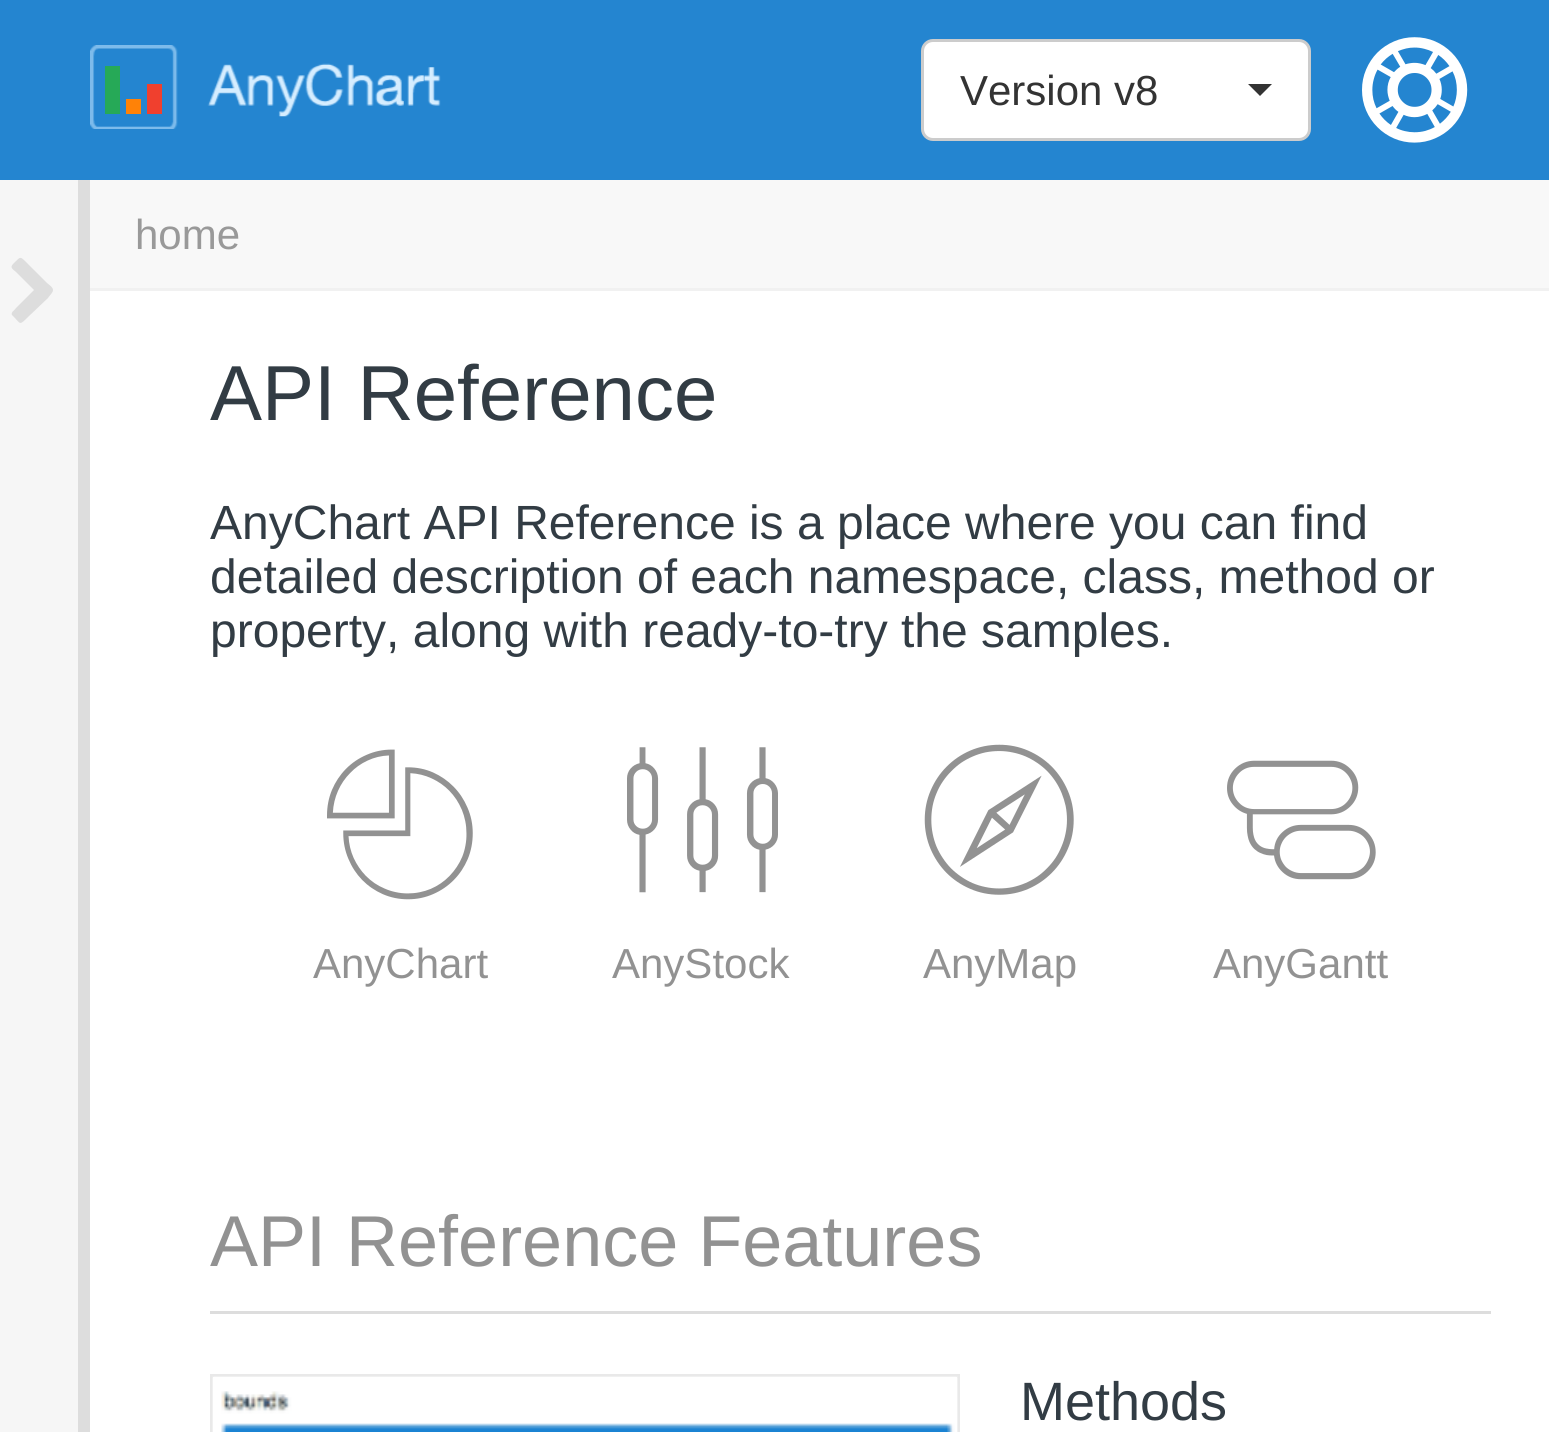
import math
import cairocffi as cairo

surface = cairo.ImageSurface(cairo.FORMAT_RGB24, 1549, 1432)
ctx = cairo.Context(surface)
options = cairo.FontOptions()
options.set_hint_metrics(cairo.HINT_METRICS_OFF)
options.set_hint_style(cairo.HINT_STYLE_NONE)
ctx.set_font_options(options)
ctx.set_miter_limit(4)


def rgb(r, g, b):
    ctx.set_source_rgb(r / 255, g / 255, b / 255)


def face(family, size, italic, bold):
    ctx.select_font_face(family, cairo.FONT_SLANT_ITALIC if italic else cairo.FONT_SLANT_NORMAL, cairo.FONT_WEIGHT_BOLD if bold else cairo.FONT_WEIGHT_NORMAL)
    ctx.set_font_size(size)


def label(x, y, s):
    ctx.move_to(x, y)
    ctx.show_text(s)


def rect(x, y, w, h):
    ctx.rectangle(x, y, w, h)
    ctx.fill()


def rrect(x, y, w, h, r):
    ctx.new_sub_path()
    for i, (u, v) in enumerate([(x + w - r, y + h - r), (x + r, y + h - r), (x + r, y + r), (x + w - r, y + r)]):
        ctx.arc(u, v, r, i * math.pi / 2, (i + 1) * math.pi / 2)
    ctx.close_path()


def image(path, x, y, w, h):
    ctx.save()
    ctx.set_source_surface(cairo.ImageSurface.create_from_png(path), x, y)
    ctx.rectangle(x, y, w, h)
    ctx.fill()
    ctx.restore()


rgb(255, 255, 255)
ctx.paint()
rgb(36, 133, 208)
rect(0, 0, 1549, 180)
image('image0.png', 90, 45, 351, 84)
rgb(38, 169, 87)
rect(105, 66, 15, 48)
rgb(255, 130, 7)
rect(126, 99, 15, 15)
rgb(240, 64, 46)
rect(147, 84, 15, 30)
rgb(255, 255, 255)
rrect(922.5, 40.5, 387, 99, 10.5)
ctx.fill_preserve()
rgb(204, 204, 204)
ctx.set_line_width(3)
ctx.stroke()
face('Liberation Sans', 42, 0, 0)
rgb(51, 51, 51)
label(960, 105, 'Version v8')
ctx.new_path()
ctx.move_to(1248, 84)
ctx.line_to(1272, 84)
ctx.line_to(1260, 96)
ctx.close_path()
ctx.fill()
image('image1.png', 1362, 37, 106, 106)
rgb(246, 246, 246)
rect(0, 180, 78, 1252)
rgb(221, 221, 221)
ctx.new_path()
ctx.move_to(13, 316)
ctx.curve_to(9, 313, 15, 310, 16, 308)
ctx.line_to(34, 290)
ctx.line_to(16, 272)
ctx.curve_to(11, 268, 10, 267, 14, 263)
ctx.curve_to(21, 256, 20, 256, 28, 264)
ctx.line_to(47, 283)
ctx.curve_to(48, 284, 53, 287, 53, 290)
ctx.curve_to(53, 293, 49, 296, 48, 298)
ctx.line_to(28, 317)
ctx.curve_to(19, 326, 21, 324, 13, 316)
ctx.close_path()
ctx.fill()
rect(78, 180, 12, 1252)
rgb(248, 248, 248)
rect(90, 180, 1459, 108)
rgb(241, 241, 241)
rect(90, 288, 1459, 3)
rgb(153, 153, 153)
label(135, 249, 'home')
face('Liberation Sans', 78, 0, 0)
rgb(50, 60, 68)
label(210, 420, 'API Reference')
face('Liberation Sans', 48, 0, 0)
label(210, 539, 'AnyChart API Reference is a place where you can find')
label(210, 593, 'detailed description of each namespace, class, method or')
label(210, 647, 'property, along with ready-to-try the samples.')
image('image2.png', 327, 749, 146, 151)
face('Liberation Sans', 42, 0, 0)
rgb(146, 146, 146)
label(313, 978, 'AnyChart')
image('image3.png', 627, 747, 151, 146)
label(612, 978, 'AnyStock')
image('image4.png', 924, 744, 150, 151)
label(923, 978, 'AnyMap')
image('image5.png', 1227, 760, 149, 120)
label(1213, 978, 'AnyGantt')
rgb(221, 221, 221)
rect(210, 1311, 1281, 3)
face('Liberation Sans', 72, 0, 0)
rgb(146, 146, 146)
label(210, 1266, 'API Reference Features')
ctx.rectangle(211.5, 1375.5, 747, 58)
rgb(233, 233, 233)
ctx.stroke()
image('image6.png', 212, 1376, 746, 56)
face('Liberation Sans', 54, 0, 0)
rgb(50, 60, 68)
label(1020, 1420, 'Methods')
surface.write_to_png('render.png')
